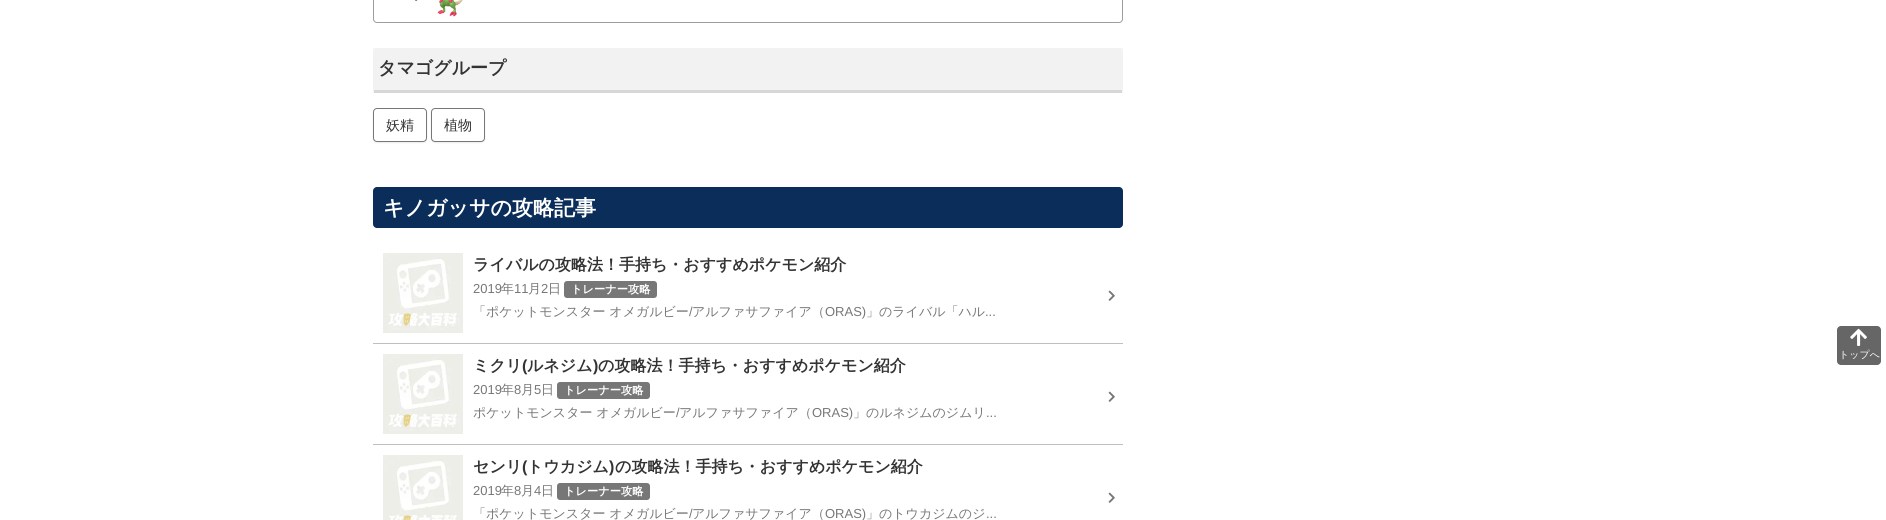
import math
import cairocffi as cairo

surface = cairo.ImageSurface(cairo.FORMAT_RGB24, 1886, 520)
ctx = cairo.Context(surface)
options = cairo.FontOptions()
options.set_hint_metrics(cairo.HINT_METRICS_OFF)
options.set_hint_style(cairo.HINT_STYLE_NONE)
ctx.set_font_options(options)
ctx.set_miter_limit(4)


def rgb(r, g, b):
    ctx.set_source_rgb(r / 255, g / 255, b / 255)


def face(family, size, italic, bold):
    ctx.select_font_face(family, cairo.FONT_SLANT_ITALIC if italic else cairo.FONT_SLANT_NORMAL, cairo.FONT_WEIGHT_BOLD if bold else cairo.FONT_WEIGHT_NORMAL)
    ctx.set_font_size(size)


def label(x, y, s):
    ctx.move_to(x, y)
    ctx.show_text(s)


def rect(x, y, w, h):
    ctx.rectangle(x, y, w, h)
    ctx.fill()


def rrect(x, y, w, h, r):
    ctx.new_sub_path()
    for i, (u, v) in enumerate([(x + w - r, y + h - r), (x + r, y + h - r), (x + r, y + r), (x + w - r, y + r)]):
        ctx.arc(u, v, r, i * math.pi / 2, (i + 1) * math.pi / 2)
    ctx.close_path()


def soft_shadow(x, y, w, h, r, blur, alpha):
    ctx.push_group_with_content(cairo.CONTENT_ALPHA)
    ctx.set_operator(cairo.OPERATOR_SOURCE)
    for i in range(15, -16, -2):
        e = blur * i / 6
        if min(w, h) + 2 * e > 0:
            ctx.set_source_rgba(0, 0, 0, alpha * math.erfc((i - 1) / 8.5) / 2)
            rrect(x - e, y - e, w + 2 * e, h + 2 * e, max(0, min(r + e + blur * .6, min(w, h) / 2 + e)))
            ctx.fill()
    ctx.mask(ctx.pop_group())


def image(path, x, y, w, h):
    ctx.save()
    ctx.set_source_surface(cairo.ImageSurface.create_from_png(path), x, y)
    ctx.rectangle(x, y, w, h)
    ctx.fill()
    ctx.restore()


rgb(255, 255, 255)
ctx.paint()
rrect(373.5, -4.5, 749, 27, 3.5)
rgb(157, 157, 157)
ctx.set_line_width(1)
ctx.stroke()
image('image0.png', 415, 0, 3, 1)
image('image1.png', 437, 0, 26, 17)
rgb(242, 242, 242)
rrect(373, 48, 750, 45, 2)
ctx.fill()
rgb(215, 215, 215)
rect(374, 90, 748, 3)
face('WenQuanYi Zen Hei', 18, 0, 1)
rgb(51, 51, 51)
label(378, 74, 'タマゴグループ')
rgb(0, 0, 0)
soft_shadow(373, 109, 54, 34, 4, 0.5, 0.07)
rgb(255, 255, 255)
rrect(373.5, 108.5, 53, 33, 3.5)
ctx.fill_preserve()
rgb(119, 119, 119)
ctx.stroke()
face('WenQuanYi Zen Hei Medium', 14, 0, 0)
rgb(51, 51, 51)
label(386, 130, '妖精')
rgb(0, 0, 0)
soft_shadow(431, 109, 54, 34, 4, 0.5, 0.07)
rgb(255, 255, 255)
rrect(431.5, 108.5, 53, 33, 3.5)
ctx.fill_preserve()
rgb(119, 119, 119)
ctx.stroke()
rgb(51, 51, 51)
label(444, 130, '植物')
rgb(10, 45, 90)
rrect(373, 187, 750, 41, 4)
ctx.fill()
face('WenQuanYi Zen Hei', 21, 0, 1)
rgb(255, 255, 255)
label(383, 215, 'キノガッサの攻略記事')
rgb(191, 191, 191)
rect(373, 343, 750, 1)
image('image2.png', 383, 253, 80, 80)
face('WenQuanYi Zen Hei', 16, 0, 1)
rgb(51, 51, 51)
label(473, 270, 'ライバルの攻略法！手持ち・おすすめポケモン紹介')
face('Liberation Sans', 13, 0, 0)
rgb(119, 119, 119)
label(473, 293, '2019')
face('WenQuanYi Zen Hei Medium', 13, 0, 0)
label(501, 293, '年')
face('Liberation Sans', 13, 0, 0)
label(514, 293, '11')
face('WenQuanYi Zen Hei Medium', 13, 0, 0)
label(528, 293, '月')
face('Liberation Sans', 13, 0, 0)
label(541, 293, '2')
face('WenQuanYi Zen Hei Medium', 13, 0, 0)
label(548, 293, '日')
rrect(564, 281, 93, 17, 3)
ctx.fill()
face('WenQuanYi Zen Hei', 11.25, 0, 1)
rgb(255, 255, 255)
label(571, 293, 'トレーナー攻略')
face('WenQuanYi Zen Hei Medium', 13, 0, 0)
rgb(119, 119, 119)
label(473, 316, '「ポケットモンスター オメガルビー')
face('Liberation Sans', 13, 0, 0)
label(689, 316, '/')
face('WenQuanYi Zen Hei Medium', 13, 0, 0)
label(692, 316, 'アルファサファイア（')
face('Liberation Sans', 13, 0, 0)
label(825, 316, 'ORAS)')
face('WenQuanYi Zen Hei Medium', 13, 0, 0)
label(866, 316, '」のライバル「ハル')
face('Liberation Sans', 13, 0, 0)
label(985, 316, '...')
image('image3.png', 1108, 290, 7, 11)
rgb(191, 191, 191)
rect(373, 444, 750, 1)
image('image4.png', 383, 354, 80, 80)
face('WenQuanYi Zen Hei', 16, 0, 1)
rgb(51, 51, 51)
label(473, 371, 'ミクリ')
face('Liberation Sans', 16, 0, 1)
label(522, 371, '(')
face('WenQuanYi Zen Hei', 16, 0, 1)
label(527, 371, 'ルネジム')
face('Liberation Sans', 16, 0, 1)
label(593, 371, ')')
face('WenQuanYi Zen Hei', 16, 0, 1)
label(598, 371, 'の攻略法！手持ち・おすすめポケモン紹介')
face('Liberation Sans', 13, 0, 0)
rgb(119, 119, 119)
label(473, 394, '2019')
face('WenQuanYi Zen Hei Medium', 13, 0, 0)
label(501, 394, '年')
face('Liberation Sans', 13, 0, 0)
label(514, 394, '8')
face('WenQuanYi Zen Hei Medium', 13, 0, 0)
label(521, 394, '月')
face('Liberation Sans', 13, 0, 0)
label(534, 394, '5')
face('WenQuanYi Zen Hei Medium', 13, 0, 0)
label(541, 394, '日')
rrect(557, 382, 93, 17, 3)
ctx.fill()
face('WenQuanYi Zen Hei', 11.25, 0, 1)
rgb(255, 255, 255)
label(564, 394, 'トレーナー攻略')
face('WenQuanYi Zen Hei Medium', 13, 0, 0)
rgb(119, 119, 119)
label(473, 417, 'ポケットモンスター オメガルビー')
face('Liberation Sans', 13, 0, 0)
label(676, 417, '/')
face('WenQuanYi Zen Hei Medium', 13, 0, 0)
label(679, 417, 'アルファサファイア（')
face('Liberation Sans', 13, 0, 0)
label(812, 417, 'ORAS)')
face('WenQuanYi Zen Hei Medium', 13, 0, 0)
label(853, 417, '」のルネジムのジムリ')
face('Liberation Sans', 13, 0, 0)
label(986, 417, '...')
image('image3.png', 1108, 391, 7, 11)
image('image5.png', 383, 455, 80, 65)
face('WenQuanYi Zen Hei', 16, 0, 1)
rgb(51, 51, 51)
label(473, 472, 'センリ')
face('Liberation Sans', 16, 0, 1)
label(522, 472, '(')
face('WenQuanYi Zen Hei', 16, 0, 1)
label(527, 472, 'トウカジム')
face('Liberation Sans', 16, 0, 1)
label(609, 472, ')')
face('WenQuanYi Zen Hei', 16, 0, 1)
label(615, 472, 'の攻略法！手持ち・おすすめポケモン紹介')
face('Liberation Sans', 13, 0, 0)
rgb(119, 119, 119)
label(473, 495, '2019')
face('WenQuanYi Zen Hei Medium', 13, 0, 0)
label(501, 495, '年')
face('Liberation Sans', 13, 0, 0)
label(514, 495, '8')
face('WenQuanYi Zen Hei Medium', 13, 0, 0)
label(521, 495, '月')
face('Liberation Sans', 13, 0, 0)
label(534, 495, '4')
face('WenQuanYi Zen Hei Medium', 13, 0, 0)
label(541, 495, '日')
rrect(557, 483, 93, 17, 3)
ctx.fill()
face('WenQuanYi Zen Hei', 11.25, 0, 1)
rgb(255, 255, 255)
label(564, 495, 'トレーナー攻略')
face('WenQuanYi Zen Hei Medium', 13, 0, 0)
rgb(119, 119, 119)
label(473, 518, '「ポケットモンスター オメガルビー')
face('Liberation Sans', 13, 0, 0)
label(689, 518, '/')
face('WenQuanYi Zen Hei Medium', 13, 0, 0)
label(692, 518, 'アルファサファイア（')
face('Liberation Sans', 13, 0, 0)
label(825, 518, 'ORAS)')
face('WenQuanYi Zen Hei Medium', 13, 0, 0)
label(866, 518, '」のトウカジムのジ')
face('Liberation Sans', 13, 0, 0)
label(986, 518, '...')
image('image3.png', 1108, 492, 7, 11)
rgb(102, 102, 102)
rrect(1837, 326, 44, 39, 4)
ctx.fill()
image('image6.png', 1850, 328, 17, 18)
face('WenQuanYi Zen Hei Medium', 10, 0, 0)
rgb(255, 255, 255)
label(1839, 358, 'トップへ')
surface.write_to_png('render.png')
